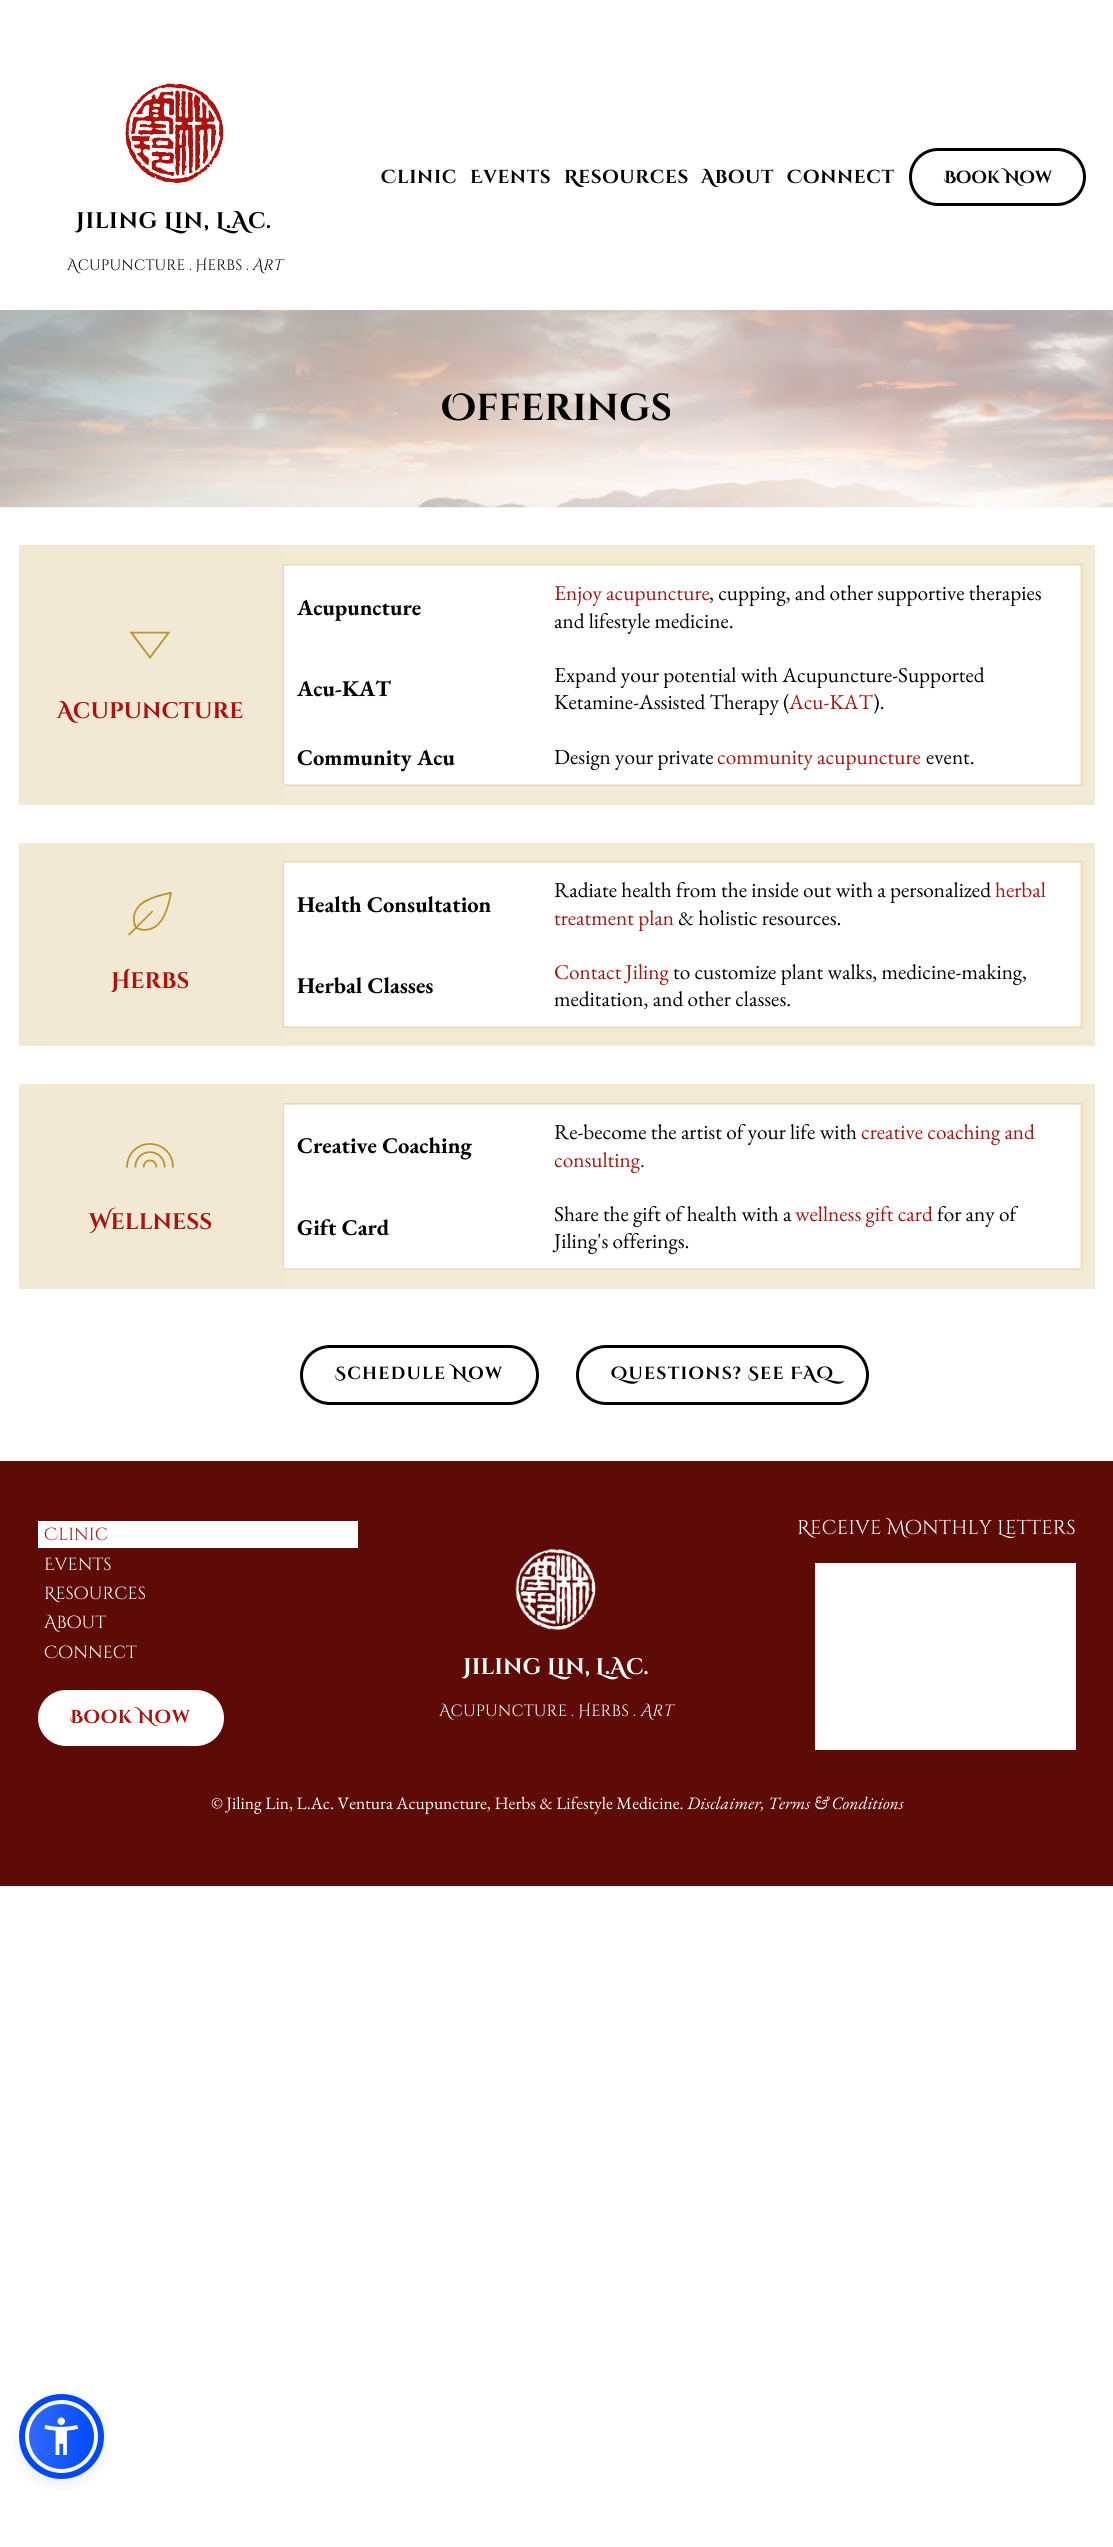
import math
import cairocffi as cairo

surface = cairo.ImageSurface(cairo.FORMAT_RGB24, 1113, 2547)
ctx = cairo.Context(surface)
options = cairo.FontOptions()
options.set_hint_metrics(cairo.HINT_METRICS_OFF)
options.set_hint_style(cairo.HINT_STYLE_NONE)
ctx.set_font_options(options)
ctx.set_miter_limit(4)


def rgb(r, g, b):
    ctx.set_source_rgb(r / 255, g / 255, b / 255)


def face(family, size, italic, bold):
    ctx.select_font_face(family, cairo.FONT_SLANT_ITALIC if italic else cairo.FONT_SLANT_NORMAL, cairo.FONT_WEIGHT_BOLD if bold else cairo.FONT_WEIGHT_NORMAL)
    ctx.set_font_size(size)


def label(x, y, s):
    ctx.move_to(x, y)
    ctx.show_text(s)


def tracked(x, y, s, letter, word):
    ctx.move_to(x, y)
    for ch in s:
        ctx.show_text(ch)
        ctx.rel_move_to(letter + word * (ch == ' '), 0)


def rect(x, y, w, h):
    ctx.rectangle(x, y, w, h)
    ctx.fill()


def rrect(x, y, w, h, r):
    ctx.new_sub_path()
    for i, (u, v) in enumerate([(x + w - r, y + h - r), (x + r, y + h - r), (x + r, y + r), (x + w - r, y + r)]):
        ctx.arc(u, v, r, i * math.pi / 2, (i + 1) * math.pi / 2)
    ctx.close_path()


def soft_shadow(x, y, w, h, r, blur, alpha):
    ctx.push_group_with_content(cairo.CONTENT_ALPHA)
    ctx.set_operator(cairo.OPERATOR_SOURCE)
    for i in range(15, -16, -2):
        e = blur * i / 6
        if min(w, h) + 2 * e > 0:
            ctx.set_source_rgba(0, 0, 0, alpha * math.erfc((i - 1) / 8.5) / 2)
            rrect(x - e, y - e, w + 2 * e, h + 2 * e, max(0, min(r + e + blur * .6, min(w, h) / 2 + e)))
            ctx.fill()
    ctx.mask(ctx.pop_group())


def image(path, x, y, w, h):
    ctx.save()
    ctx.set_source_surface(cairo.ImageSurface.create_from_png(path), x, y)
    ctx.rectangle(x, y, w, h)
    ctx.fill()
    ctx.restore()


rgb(255, 255, 255)
ctx.paint()
face('Cinzel Decorative', 18.75, 0, 1)
rgb(0, 0, 0)
tracked(381, 183, 'Clinic', 0.6, 0)
tracked(470, 183, 'Events', 0.6, 0)
tracked(564, 183, 'Resources', 0.6, 0)
tracked(701, 183, 'About', 0.6, 0)
tracked(787, 183, 'Connect', 0.6, 0)
rrect(910.5, 149.5, 174, 55, 27.5)
ctx.set_line_width(3)
ctx.stroke()
face('Cinzel Decorative', 17.5, 0, 1)
label(944, 183, 'Book Now')
image('image0.png', 125, 83, 99, 100)
face('Cinzel Decorative', 22.5, 0, 1)
tracked(76, 228, 'Jiling Lin, L.Ac.', 0.6, 0)
face('Cinzel Decorative', 15, 0, 0)
label(67, 270, 'Acupuncture . Herbs .')
face('Cinzel Decorative', 15, 1, 0)
label(252, 270, 'Art')
image('image1.png', 0, 310, 1113, 198)
face('Cinzel Decorative', 37.5, 0, 1)
label(441, 420, 'Offerings')
rgb(242, 233, 213)
rect(19, 545, 264, 260)
image('image2.png', 129, 631, 42, 28)
face('Cinzel Decorative', 22.5, 0, 1)
rgb(173, 18, 13)
label(57, 718, 'Acupuncture')
rgb(242, 234, 213)
rect(283, 545, 812, 260)
ctx.rectangle(283.5, 564.5, 799, 221)
rgb(231, 217, 179)
ctx.set_line_width(1)
ctx.stroke()
rgb(255, 255, 255)
rect(284, 566, 796, 82)
face('EB Garamond', 22.5, 0, 1)
rgb(0, 0, 0)
label(297, 615, 'Acupuncture')
face('EB Garamond', 21.25, 0, 0)
rgb(173, 18, 13)
label(554, 600, 'Enjoy acupuncture')
rgb(0, 0, 0)
label(709, 600, ', cupping, and other supportive therapies')
label(554, 628, 'and lifestyle medicine.')
rgb(255, 255, 255)
rect(284, 648, 796, 81)
face('EB Garamond', 22.5, 0, 1)
rgb(0, 0, 0)
label(297, 696, 'Acu-KAT')
face('EB Garamond', 21.25, 0, 0)
label(554, 682, 'Expand your potential with Acupuncture-Supported')
label(554, 709, 'Ketamine-Assisted Therapy (')
rgb(173, 18, 13)
label(789, 709, 'Acu-KAT')
rgb(0, 0, 0)
label(873, 709, ').')
rgb(255, 255, 255)
rect(284, 729, 796, 55)
face('EB Garamond', 22.5, 0, 1)
rgb(0, 0, 0)
label(297, 765, 'Community Acu')
face('EB Garamond', 21.25, 0, 0)
label(554, 764, 'Design your private')
rgb(173, 18, 13)
label(717, 764, 'community acupuncture')
rgb(0, 0, 0)
label(926, 764, 'event.')
rgb(242, 233, 213)
rect(19, 843, 264, 203)
image('image3.png', 128, 891, 44, 45)
face('Cinzel Decorative', 22.5, 0, 1)
rgb(173, 18, 13)
label(111, 988, 'Herbs')
rgb(242, 234, 213)
rect(283, 843, 812, 203)
ctx.rectangle(283.5, 861.5, 799, 166)
rgb(231, 217, 179)
ctx.stroke()
rgb(255, 255, 255)
rect(284, 863, 796, 82)
face('EB Garamond', 22.5, 0, 1)
rgb(0, 0, 0)
label(297, 912, 'Health Consultation')
face('EB Garamond', 21.25, 0, 0)
label(554, 897, 'Radiate health from the inside out with a personalized')
rgb(173, 18, 13)
label(995, 897, 'herbal')
label(554, 925, 'treatment plan')
rgb(0, 0, 0)
label(678, 925, '& holistic resources.')
rgb(255, 255, 255)
rect(284, 945, 796, 81)
face('EB Garamond', 22.5, 0, 1)
rgb(0, 0, 0)
label(297, 993, 'Herbal Classes')
face('EB Garamond', 21.25, 0, 0)
rgb(173, 18, 13)
label(554, 979, 'Contact Jiling')
rgb(0, 0, 0)
label(673, 979, 'to customize plant walks, medicine-making,')
label(554, 1006, 'meditation, and other classes.')
rgb(242, 233, 213)
rect(19, 1084, 264, 205)
image('image4.png', 126, 1143, 48, 25)
face('Cinzel Decorative', 22.5, 0, 1)
rgb(173, 18, 13)
label(89, 1229, 'Wellness')
rgb(242, 234, 213)
rect(283, 1084, 812, 205)
ctx.rectangle(283.5, 1103.5, 799, 166)
rgb(231, 217, 179)
ctx.stroke()
rgb(255, 255, 255)
rect(284, 1105, 796, 81)
face('EB Garamond', 22.5, 0, 1)
rgb(0, 0, 0)
label(297, 1153, 'Creative Coaching')
face('EB Garamond', 21.25, 0, 0)
label(554, 1139, 'Re-become the artist of your life with')
rgb(173, 18, 13)
label(861, 1139, 'creative coaching and')
label(554, 1167, 'consulting')
rgb(24, 46, 67)
label(640, 1167, '.')
rgb(255, 255, 255)
rect(284, 1186, 796, 82)
face('EB Garamond', 22.5, 0, 1)
rgb(0, 0, 0)
label(297, 1235, 'Gift Card')
face('EB Garamond', 21.25, 0, 0)
label(554, 1221, 'Share the gift of health with a')
rgb(173, 18, 13)
label(795, 1221, 'wellness gift card')
rgb(0, 0, 0)
label(937, 1221, 'for any of')
label(554, 1248, 'Jiling\'s offerings.')
rrect(301.5, 1346.5, 236, 57, 28.5)
ctx.set_line_width(3)
ctx.stroke()
face('Cinzel Decorative', 17.5, 0, 1)
tracked(335, 1379, 'Schedule Now', 1.25, 0)
rrect(577.5, 1346.5, 290, 57, 28.5)
ctx.stroke()
tracked(611, 1379, 'Questions? See FAQ', 1.25, 0)
rgb(94, 10, 7)
rect(0, 1461, 1113, 425)
rgb(255, 255, 255)
rect(38, 1521, 320, 27)
face('Cinzel Decorative', 17.5, 0, 0)
rgb(173, 18, 13)
label(44, 1540, 'Clinic')
rgb(255, 255, 255)
label(44, 1570, 'Events')
label(44, 1599, 'Resources')
label(44, 1628, 'About')
label(44, 1658, 'Connect')
rrect(38, 1690, 186, 56, 28)
ctx.fill()
face('Cinzel Decorative', 18.75, 0, 1)
rgb(173, 18, 13)
tracked(70, 1723, 'Book Now', 0.6, 0)
image('image5.png', 515, 1548, 81, 83)
face('Cinzel Decorative', 22.5, 0, 1)
rgb(255, 255, 255)
label(463, 1674, 'Jiling Lin, L.Ac.')
face('Cinzel Decorative', 16.25, 0, 0)
label(439, 1716, 'Acupuncture . Herbs .')
face('Cinzel Decorative', 16.25, 1, 0)
label(640, 1716, 'Art')
face('Cinzel Decorative', 20, 0, 0)
label(797, 1534, 'Receive Monthly Letters')
rect(815, 1563, 261, 187)
face('EB Garamond', 17.5, 0, 0)
label(211, 1809, '© Jiling Lin, L.Ac. Ventura Acupuncture, Herbs & Lifestyle Medicine.')
face('EB Garamond', 17.5, 1, 0)
label(687, 1809, 'Disclaimer, Terms & Conditions')
rgb(93, 100, 148)
soft_shadow(25, 2403, 73, 72, 36, 2.5, 0.2)
rgb(37, 44, 97)
soft_shadow(25, 2406, 73, 73, 36.5, 9.5, 0.15)
ctx.save()
rrect(25, 2400, 73, 73, 36.5)
ctx.clip()
gradient = cairo.LinearGradient(26, 2433, 97, 2440)
gradient.add_color_stop_rgba(0, 0.196, 0.424, 1, 1)
gradient.add_color_stop_rgba(1, 0, 0.282, 1, 1)
ctx.set_source(gradient)
rect(29, 2404, 65, 65)
ctx.restore()
ctx.arc(61.5, 2436.5, 34.5, 0, 2 * math.pi)
rgb(255, 255, 255)
ctx.set_line_width(4)
ctx.stroke()
ctx.arc(61.5, 2436.5, 39.5, 0, 2 * math.pi)
rgb(0, 72, 255)
ctx.set_line_width(6)
ctx.stroke()
image('image6.png', 44, 2417, 35, 38)
surface.write_to_png('render.png')
